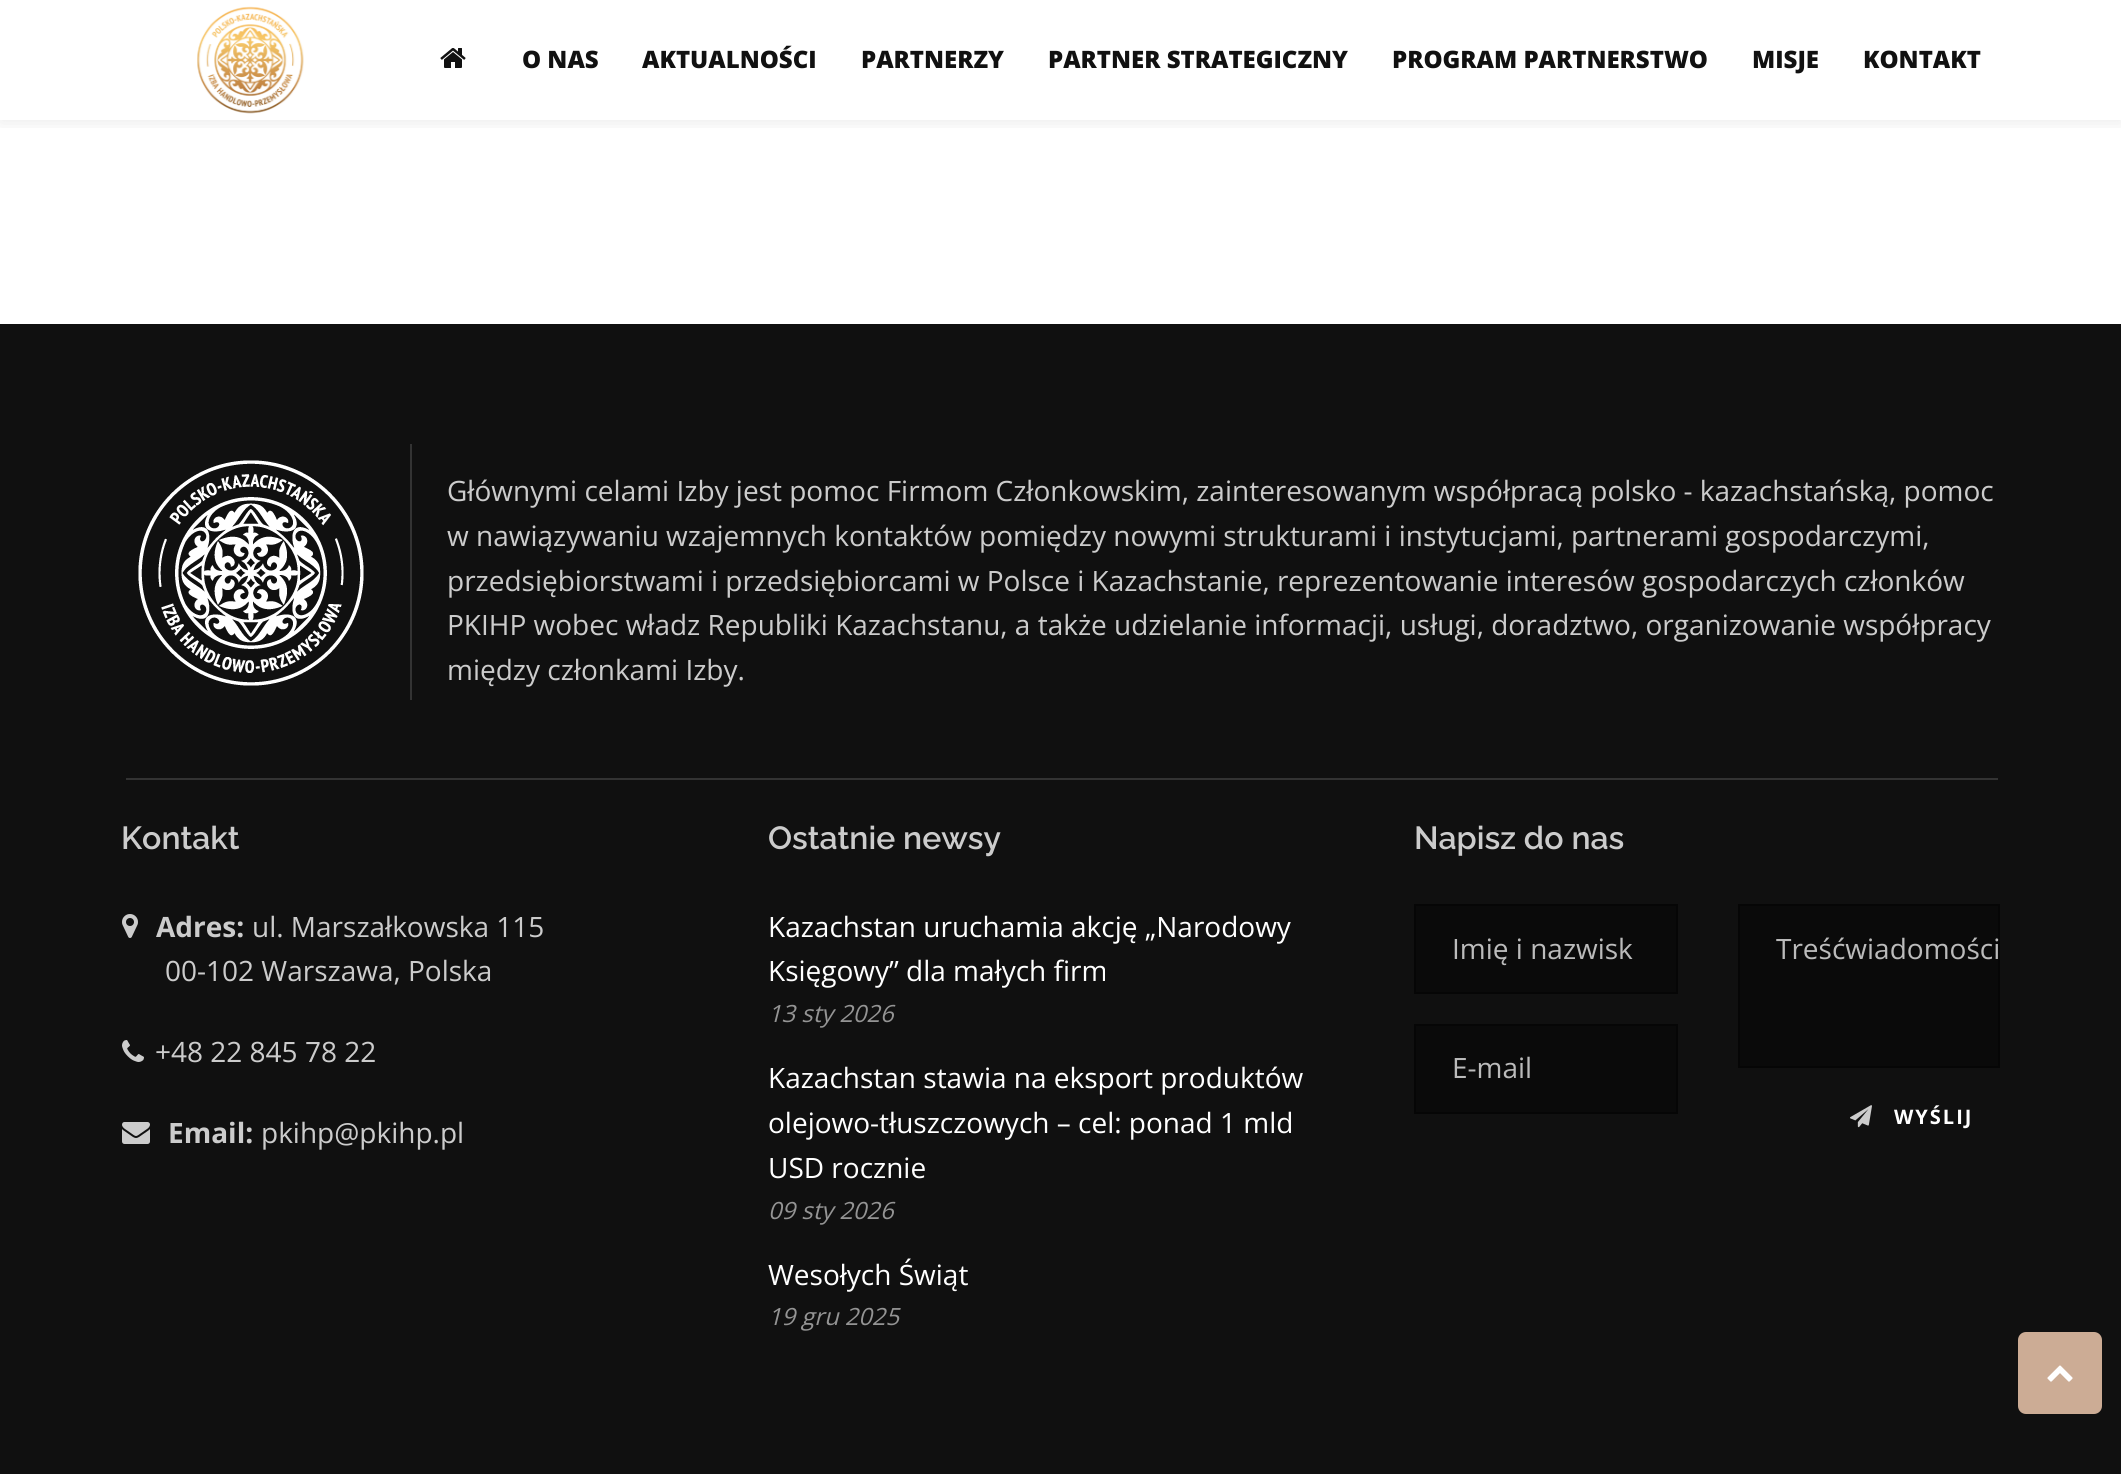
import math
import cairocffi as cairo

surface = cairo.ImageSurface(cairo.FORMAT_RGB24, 2121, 1474)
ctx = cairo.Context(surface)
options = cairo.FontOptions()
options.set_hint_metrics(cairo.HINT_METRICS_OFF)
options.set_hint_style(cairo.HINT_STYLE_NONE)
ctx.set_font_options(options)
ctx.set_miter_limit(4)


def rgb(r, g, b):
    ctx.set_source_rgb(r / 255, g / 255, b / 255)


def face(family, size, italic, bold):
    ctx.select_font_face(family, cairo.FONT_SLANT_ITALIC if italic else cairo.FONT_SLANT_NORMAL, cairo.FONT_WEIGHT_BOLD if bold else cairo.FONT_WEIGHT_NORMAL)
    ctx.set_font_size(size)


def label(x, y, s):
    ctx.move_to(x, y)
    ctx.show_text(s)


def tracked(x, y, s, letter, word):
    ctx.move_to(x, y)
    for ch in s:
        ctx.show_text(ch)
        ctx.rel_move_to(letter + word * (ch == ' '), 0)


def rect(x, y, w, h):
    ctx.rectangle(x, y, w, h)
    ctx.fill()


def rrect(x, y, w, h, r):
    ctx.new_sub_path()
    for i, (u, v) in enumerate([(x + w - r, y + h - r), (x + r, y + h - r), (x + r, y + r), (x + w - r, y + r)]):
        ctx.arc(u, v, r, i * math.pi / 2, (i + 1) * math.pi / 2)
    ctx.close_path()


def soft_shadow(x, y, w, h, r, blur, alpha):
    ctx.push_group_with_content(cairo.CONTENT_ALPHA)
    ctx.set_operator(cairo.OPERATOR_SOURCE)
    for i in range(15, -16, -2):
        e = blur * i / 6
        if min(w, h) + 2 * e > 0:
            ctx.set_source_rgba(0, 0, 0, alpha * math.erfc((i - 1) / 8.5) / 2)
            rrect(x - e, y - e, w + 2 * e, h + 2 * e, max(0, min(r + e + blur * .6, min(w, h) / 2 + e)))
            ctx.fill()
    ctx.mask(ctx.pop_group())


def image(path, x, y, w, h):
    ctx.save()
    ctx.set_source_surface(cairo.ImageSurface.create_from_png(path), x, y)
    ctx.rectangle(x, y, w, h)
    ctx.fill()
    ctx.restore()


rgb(255, 255, 255)
ctx.paint()
ctx.save()
ctx.rectangle(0, 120, 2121, 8)
ctx.clip()
rgb(0, 0, 0)
soft_shadow(0, 0, 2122, 120, 0, 10, 0.1)
ctx.restore()
image('image0.png', 197, 6, 107, 108)
image('image1.png', 440, 48, 26, 20)
face('Open Sans ExtraBold', 24, 0, 0)
rgb(17, 17, 17)
label(522, 68, 'O NAS')
label(642, 68, 'AKTUALNOŚCI')
label(861, 68, 'PARTNERZY')
label(1048, 68, 'PARTNER STRATEGICZNY')
label(1392, 68, 'PROGRAM PARTNERSTWO')
label(1752, 68, 'MISJE')
label(1863, 68, 'KONTAKT')
rgb(16, 16, 16)
rect(0, 324, 2121, 1150)
rgb(51, 51, 51)
rect(410, 444, 2, 256)
image('image2.png', 138, 460, 226, 226)
face('Open Sans', 28, 0, 0)
rgb(204, 204, 204)
label(447, 501, 'Głównymi celami Izby jest pomoc Firmom Członkowskim, zainteresowanym współpracą polsko - kazachstańską, pomoc')
label(447, 546, 'w nawiązywaniu wzajemnych kontaktów pomiędzy nowymi strukturami i instytucjami, partnerami gospodarczymi,')
label(447, 591, 'przedsiębiorstwami i przedsiębiorcami w Polsce i Kazachstanie, reprezentowanie interesów gospodarczych członków')
label(447, 635, 'PKIHP wobec władz Republiki Kazachstanu, a także udzielanie informacji, usługi, doradztwo, organizowanie współpracy')
label(447, 680, 'między członkami Izby.')
rgb(51, 51, 51)
rect(126, 778, 1872, 2)
face('Raleway SemiBold', 32, 0, 0)
rgb(204, 204, 204)
label(121, 849, 'Kontakt')
image('image3.png', 122, 914, 16, 24)
face('Open Sans', 28, 0, 1)
label(156, 937, 'Adres:')
face('Open Sans', 28, 0, 0)
label(252, 937, 'ul. Marszałkowska 115')
label(165, 981, '00-102 Warszawa, Polska')
image('image4.png', 122, 1040, 22, 22)
label(155, 1062, '+48 22 845 78 22')
image('image5.png', 122, 1122, 28, 22)
face('Open Sans', 28, 0, 1)
label(168, 1143, 'Email:')
face('Open Sans', 28, 0, 0)
label(261, 1143, 'pkihp@pkihp.pl')
face('Raleway SemiBold', 32, 0, 0)
label(768, 849, 'Ostatnie newsy')
face('Open Sans', 28, 0, 0)
rgb(255, 255, 255)
label(768, 937, 'Kazachstan uruchamia akcję „Narodowy')
label(768, 981, 'Księgowy” dla małych firm')
face('Open Sans', 23.75, 1, 0)
rgb(148, 148, 148)
label(768, 1022, '13 sty 2026')
face('Open Sans', 28, 0, 0)
rgb(255, 255, 255)
label(768, 1088, 'Kazachstan stawia na eksport produktów')
label(768, 1133, 'olejowo-tłuszczowych – cel: ponad 1 mld')
label(768, 1178, 'USD rocznie')
face('Open Sans', 23.75, 1, 0)
rgb(148, 148, 148)
label(768, 1219, '09 sty 2026')
face('Open Sans', 28, 0, 0)
rgb(255, 255, 255)
label(768, 1285, 'Wesołych Świąt')
face('Open Sans', 23.75, 1, 0)
rgb(148, 148, 148)
label(768, 1325, '19 gru 2025')
face('Raleway SemiBold', 32, 0, 0)
rgb(204, 204, 204)
label(1414, 849, 'Napisz do nas')
rgb(10, 10, 10)
ctx.rectangle(1415, 905, 262, 88)
ctx.fill_preserve()
rgb(6, 6, 6)
ctx.stroke()
face('Open Sans', 28, 0, 0)
rgb(187, 187, 187)
label(1452, 959, 'Imię i nazwisk')
rgb(10, 10, 10)
ctx.rectangle(1415, 1025, 262, 88)
ctx.fill_preserve()
rgb(6, 6, 6)
ctx.stroke()
rgb(187, 187, 187)
label(1452, 1078, 'E-mail')
rgb(10, 10, 10)
ctx.rectangle(1739, 905, 260, 162)
ctx.fill_preserve()
rgb(6, 6, 6)
ctx.stroke()
rgb(187, 187, 187)
label(1776, 959, 'Treśćwiadomości')
image('image6.png', 1850, 1105, 22, 23)
face('Open Sans', 20, 0, 1)
rgb(255, 255, 255)
tracked(1894, 1124, 'WYŚLIJ', 2, 0)
rgb(204, 172, 149)
rrect(2018, 1332, 84, 82, 8)
ctx.fill()
image('image7.png', 2047, 1365, 26, 17)
surface.write_to_png('render.png')
